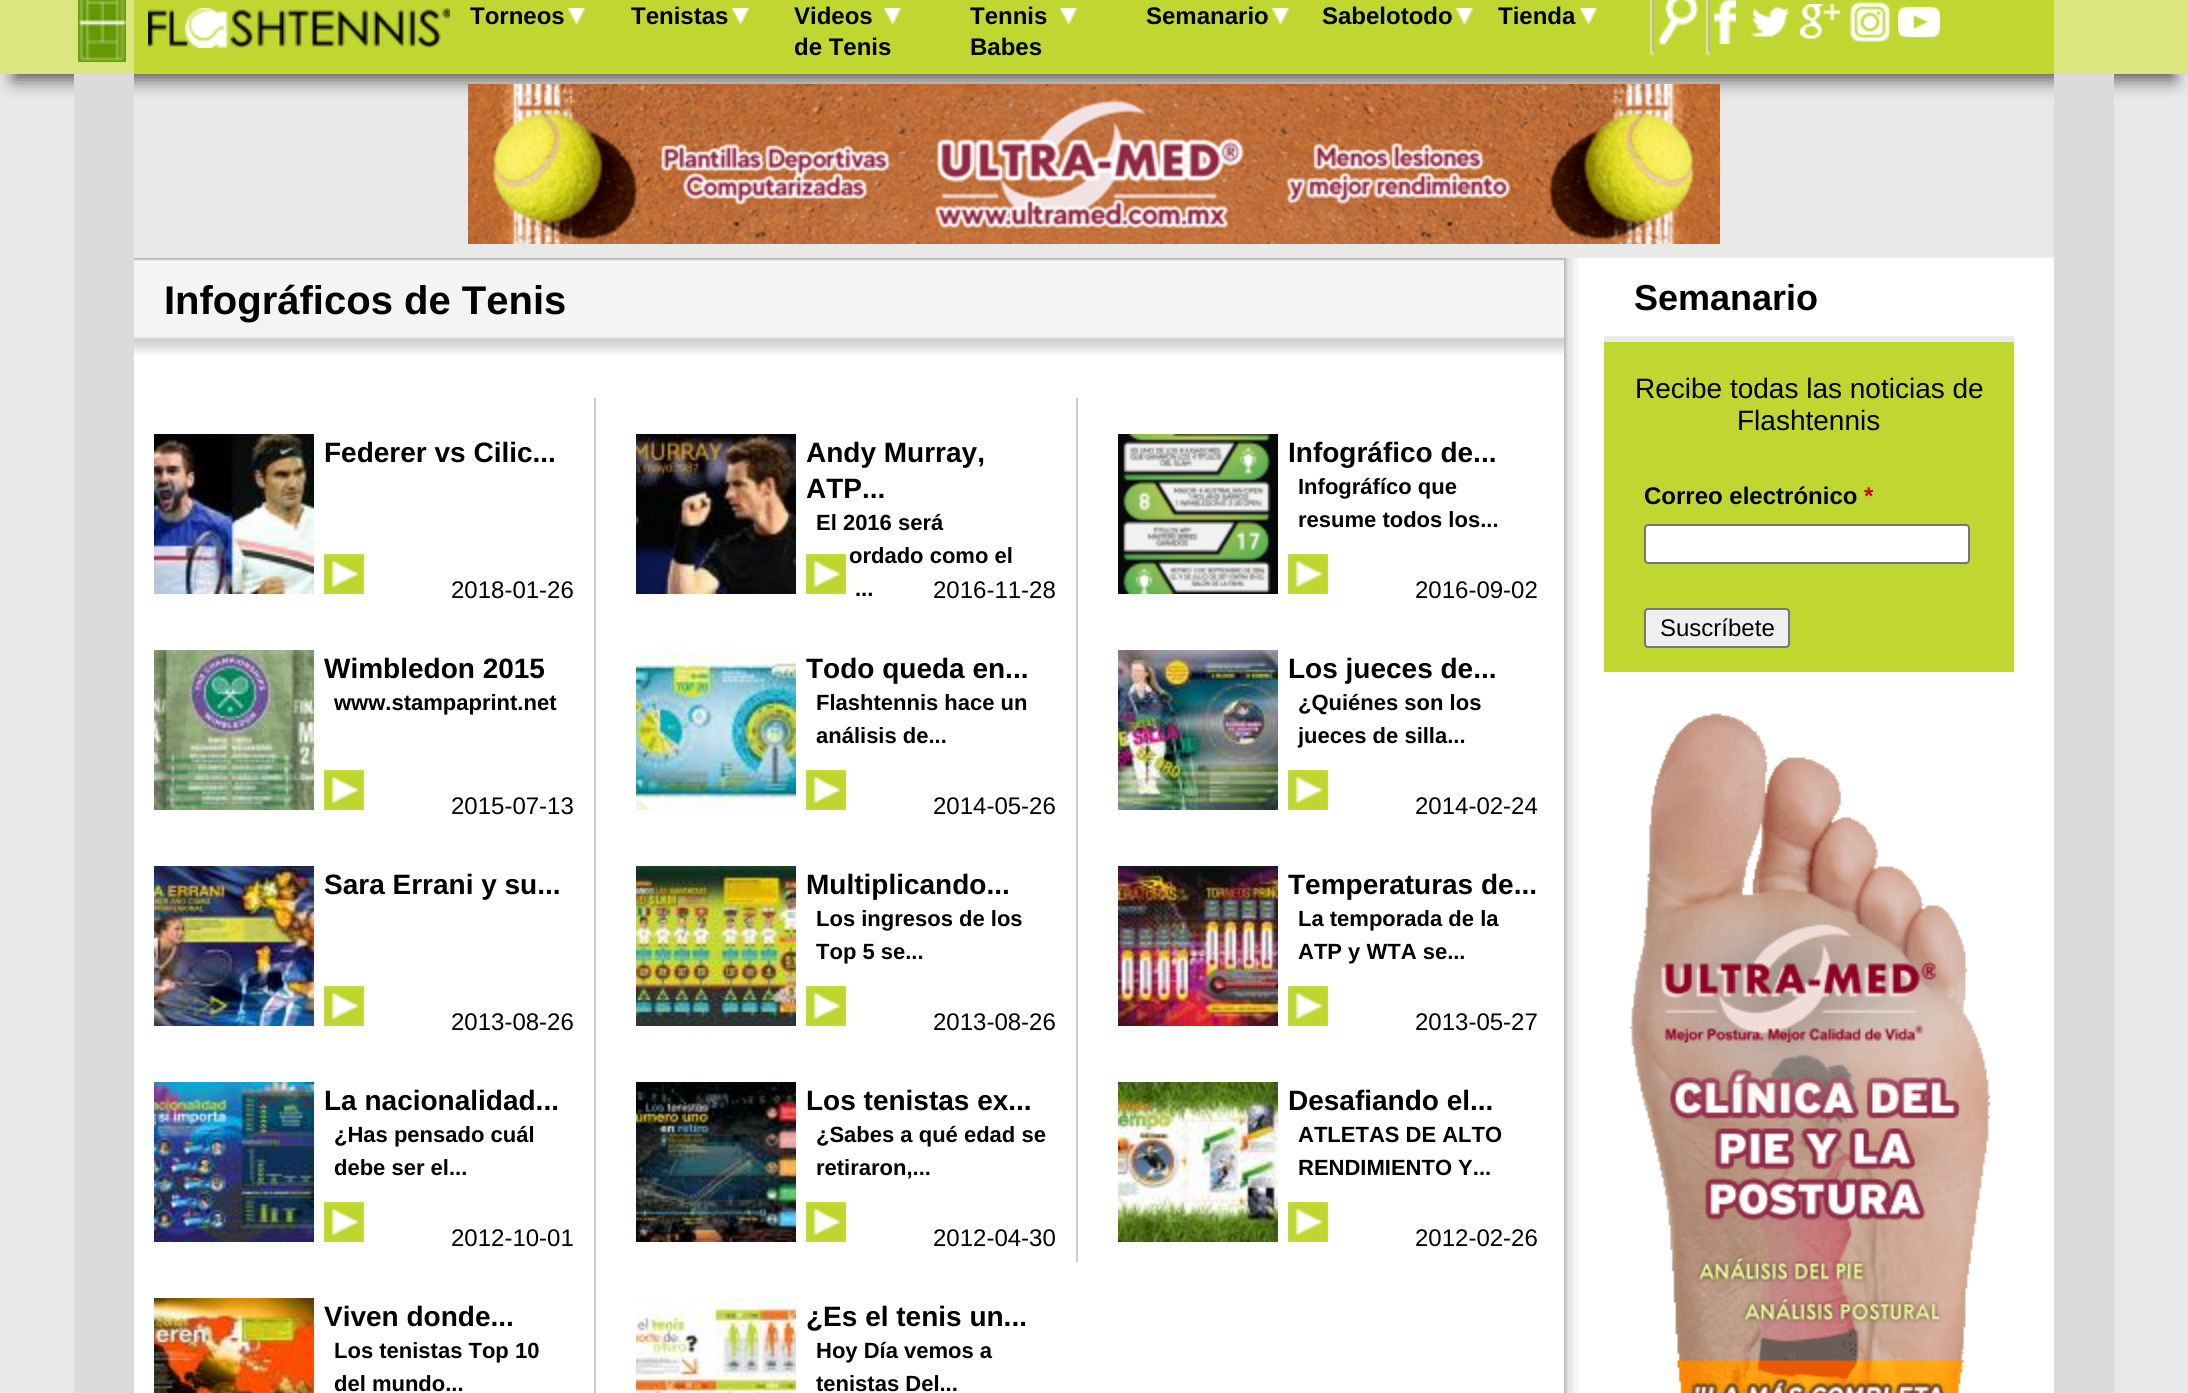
import math
import cairocffi as cairo

surface = cairo.ImageSurface(cairo.FORMAT_RGB24, 2188, 1393)
ctx = cairo.Context(surface)
options = cairo.FontOptions()
options.set_hint_metrics(cairo.HINT_METRICS_OFF)
options.set_hint_style(cairo.HINT_STYLE_NONE)
ctx.set_font_options(options)
ctx.set_miter_limit(4)


def rgb(r, g, b):
    ctx.set_source_rgb(r / 255, g / 255, b / 255)


def face(family, size, italic, bold):
    ctx.select_font_face(family, cairo.FONT_SLANT_ITALIC if italic else cairo.FONT_SLANT_NORMAL, cairo.FONT_WEIGHT_BOLD if bold else cairo.FONT_WEIGHT_NORMAL)
    ctx.set_font_size(size)


def label(x, y, s):
    ctx.move_to(x, y)
    ctx.show_text(s)


def rect(x, y, w, h):
    ctx.rectangle(x, y, w, h)
    ctx.fill()


def rrect(x, y, w, h, r):
    ctx.new_sub_path()
    for i, (u, v) in enumerate([(x + w - r, y + h - r), (x + r, y + h - r), (x + r, y + r), (x + w - r, y + r)]):
        ctx.arc(u, v, r, i * math.pi / 2, (i + 1) * math.pi / 2)
    ctx.close_path()


def soft_shadow(x, y, w, h, r, blur, alpha):
    ctx.push_group_with_content(cairo.CONTENT_ALPHA)
    ctx.set_operator(cairo.OPERATOR_SOURCE)
    for i in range(15, -16, -2):
        e = blur * i / 6
        if min(w, h) + 2 * e > 0:
            ctx.set_source_rgba(0, 0, 0, alpha * math.erfc((i - 1) / 8.5) / 2)
            rrect(x - e, y - e, w + 2 * e, h + 2 * e, max(0, min(r + e + blur * .6, min(w, h) / 2 + e)))
            ctx.fill()
    ctx.mask(ctx.pop_group())


def image(path, x, y, w, h):
    ctx.save()
    ctx.set_source_surface(cairo.ImageSurface.create_from_png(path), x, y)
    ctx.rectangle(x, y, w, h)
    ctx.fill()
    ctx.restore()


rgb(233, 233, 233)
ctx.paint()
rgb(87, 87, 87)
soft_shadow(14, 8, 2160, 72, 0, 9, 1)
rgb(218, 231, 126)
rect(0, 0, 2188, 74)
rgb(192, 215, 49)
rect(134, 0, 1920, 74)
image('image0.png', 78, 0, 48, 62)
image('image1.png', 148, 8, 302, 40)
image('image2.png', 568, 8, 18, 18)
face('Liberation Sans', 24, 0, 1)
rgb(0, 0, 0)
label(470, 24, 'Torneos')
image('image3.png', 732, 8, 18, 18)
label(631, 24, 'Tenistas')
image('image2.png', 884, 8, 18, 18)
label(794, 24, 'Videos')
label(794, 55, 'de Tenis')
image('image2.png', 1060, 8, 18, 18)
label(970, 24, 'Tennis')
label(970, 55, 'Babes')
image('image4.png', 1272, 8, 18, 18)
label(1146, 24, 'Semanario')
image('image3.png', 1456, 8, 18, 18)
label(1322, 24, 'Sabelotodo')
image('image3.png', 1580, 8, 18, 18)
label(1498, 24, 'Tienda')
image('image5.png', 1650, 0, 4, 56)
image('image6.png', 1658, 0, 40, 45)
image('image5.png', 1706, 0, 4, 56)
image('image7.png', 1714, 0, 22, 44)
image('image8.png', 1751, 7, 38, 30)
image('image9.png', 1800, 4, 40, 35)
image('image10.png', 1850, 2, 40, 40)
image('image11.png', 1898, 6, 42, 32)
rgb(220, 219, 219)
rect(2054, 74, 60, 1319)
rect(74, 74, 60, 1319)
image('image12.png', 468, 84, 1252, 160)
rgb(255, 255, 255)
rect(134, 258, 1920, 1135)
image('image13.png', 134, 258, 1430, 97)
face('Liberation Sans', 40, 0, 1)
rgb(0, 0, 0)
label(164, 314, 'Infográficos de Tenis')
rgb(204, 204, 204)
rect(594, 398, 2, 995)
image('image14.png', 154, 434, 160, 160)
face('Liberation Sans', 28, 0, 1)
rgb(0, 0, 0)
label(324, 462, 'Federer vs Cilic...')
image('image15.png', 324, 554, 40, 40)
face('Liberation Sans', 24, 0, 0)
label(451, 598, '2018-01-26')
rgb(204, 204, 204)
rect(1076, 398, 2, 864)
image('image16.png', 636, 434, 160, 160)
face('Liberation Sans', 28, 0, 1)
rgb(0, 0, 0)
label(806, 462, 'Andy Murray,')
label(806, 498, 'ATP...')
face('Liberation Sans', 22, 0, 1)
label(816, 530, 'El 2016 será')
label(849, 563, 'ordado como el')
label(855, 596, '...')
image('image15.png', 806, 554, 40, 40)
face('Liberation Sans', 24, 0, 0)
label(933, 598, '2016-11-28')
image('image17.png', 1118, 434, 160, 160)
face('Liberation Sans', 28, 0, 1)
label(1288, 462, 'Infográfico de...')
face('Liberation Sans', 22, 0, 1)
label(1298, 494, 'Infográfíco que')
label(1298, 527, 'resume todos los...')
image('image15.png', 1288, 554, 40, 40)
face('Liberation Sans', 24, 0, 0)
label(1415, 598, '2016-09-02')
image('image18.png', 154, 650, 160, 160)
face('Liberation Sans', 28, 0, 1)
label(324, 678, 'Wimbledon 2015')
face('Liberation Sans', 22, 0, 1)
label(334, 710, 'www.stampaprint.net')
image('image15.png', 324, 770, 40, 40)
face('Liberation Sans', 24, 0, 0)
label(451, 814, '2015-07-13')
image('image19.png', 636, 650, 160, 160)
face('Liberation Sans', 28, 0, 1)
label(806, 678, 'Todo queda en...')
face('Liberation Sans', 22, 0, 1)
label(816, 710, 'Flashtennis hace un')
label(816, 743, 'análisis de...')
image('image15.png', 806, 770, 40, 40)
face('Liberation Sans', 24, 0, 0)
label(933, 814, '2014-05-26')
image('image20.png', 1118, 650, 160, 160)
face('Liberation Sans', 28, 0, 1)
label(1288, 678, 'Los jueces de...')
face('Liberation Sans', 22, 0, 1)
label(1298, 710, '¿Quiénes son los')
label(1298, 743, 'jueces de silla...')
image('image15.png', 1288, 770, 40, 40)
face('Liberation Sans', 24, 0, 0)
label(1415, 814, '2014-02-24')
image('image21.png', 154, 866, 160, 160)
face('Liberation Sans', 28, 0, 1)
label(324, 894, 'Sara Errani y su...')
image('image15.png', 324, 986, 40, 40)
face('Liberation Sans', 24, 0, 0)
label(451, 1030, '2013-08-26')
image('image22.png', 636, 866, 160, 160)
face('Liberation Sans', 28, 0, 1)
label(806, 894, 'Multiplicando...')
face('Liberation Sans', 22, 0, 1)
label(816, 926, 'Los ingresos de los')
label(816, 959, 'Top 5 se...')
image('image15.png', 806, 986, 40, 40)
face('Liberation Sans', 24, 0, 0)
label(933, 1030, '2013-08-26')
image('image23.png', 1118, 866, 160, 160)
face('Liberation Sans', 28, 0, 1)
label(1288, 894, 'Temperaturas de...')
face('Liberation Sans', 22, 0, 1)
label(1298, 926, 'La temporada de la')
label(1298, 959, 'ATP y WTA se...')
image('image15.png', 1288, 986, 40, 40)
face('Liberation Sans', 24, 0, 0)
label(1415, 1030, '2013-05-27')
image('image24.png', 154, 1082, 160, 160)
face('Liberation Sans', 28, 0, 1)
label(324, 1110, 'La nacionalidad...')
face('Liberation Sans', 22, 0, 1)
label(334, 1142, '¿Has pensado cuál')
label(334, 1175, 'debe ser el...')
image('image15.png', 324, 1202, 40, 40)
face('Liberation Sans', 24, 0, 0)
label(451, 1246, '2012-10-01')
image('image25.png', 636, 1082, 160, 160)
face('Liberation Sans', 28, 0, 1)
label(806, 1110, 'Los tenistas ex...')
face('Liberation Sans', 22, 0, 1)
label(816, 1142, '¿Sabes a qué edad se')
label(816, 1175, 'retiraron,...')
image('image15.png', 806, 1202, 40, 40)
face('Liberation Sans', 24, 0, 0)
label(933, 1246, '2012-04-30')
image('image26.png', 1118, 1082, 160, 160)
face('Liberation Sans', 28, 0, 1)
label(1288, 1110, 'Desafiando el...')
face('Liberation Sans', 22, 0, 1)
label(1298, 1142, 'ATLETAS DE ALTO')
label(1298, 1175, 'RENDIMIENTO Y...')
image('image15.png', 1288, 1202, 40, 40)
face('Liberation Sans', 24, 0, 0)
label(1415, 1246, '2012-02-26')
image('image27.png', 154, 1298, 160, 95)
face('Liberation Sans', 28, 0, 1)
label(324, 1326, 'Viven donde...')
face('Liberation Sans', 22, 0, 1)
label(334, 1358, 'Los tenistas Top 10')
label(334, 1391, 'del mundo...')
image('image28.png', 636, 1298, 160, 95)
face('Liberation Sans', 28, 0, 1)
label(806, 1326, '¿Es el tenis un...')
face('Liberation Sans', 22, 0, 1)
label(816, 1358, 'Hoy Día vemos a')
label(816, 1391, 'tenistas Del...')
image('image29.png', 1564, 258, 15, 1135)
rgb(192, 215, 49)
rect(1604, 342, 410, 330)
rgb(234, 234, 234)
rect(1604, 336, 410, 6)
face('Liberation Sans', 36, 0, 1)
rgb(0, 0, 0)
label(1634, 310, 'Semanario')
face('Liberation Sans', 28, 0, 0)
label(1635, 398, 'Recibe todas las noticias de')
label(1737, 430, 'Flashtennis')
face('Liberation Sans', 24, 0, 1)
label(1644, 504, 'Correo electrónico')
rgb(204, 0, 0)
label(1864, 504, '*')
rgb(255, 255, 255)
rrect(1645, 525, 324, 38, 3)
ctx.fill_preserve()
rgb(118, 118, 118)
ctx.stroke()
rgb(239, 239, 239)
rrect(1645, 609, 144, 38, 3)
ctx.fill_preserve()
rgb(118, 118, 118)
ctx.stroke()
face('Liberation Sans', 24, 0, 0)
rgb(0, 0, 0)
label(1660, 636, 'Suscríbete')
image('image30.png', 1630, 713, 360, 680)
surface.write_to_png('render.png')
